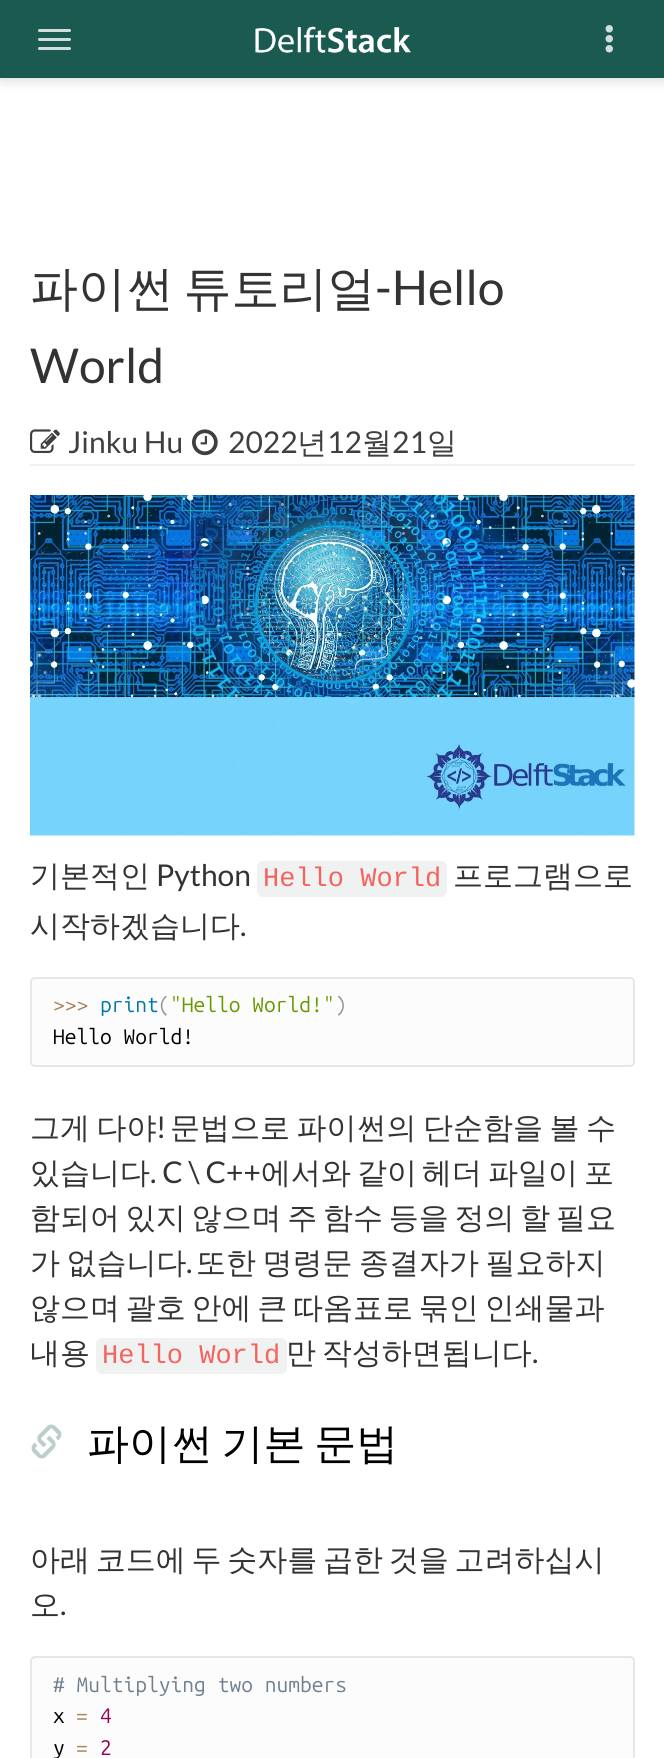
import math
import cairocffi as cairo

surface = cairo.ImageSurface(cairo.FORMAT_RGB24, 664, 1758)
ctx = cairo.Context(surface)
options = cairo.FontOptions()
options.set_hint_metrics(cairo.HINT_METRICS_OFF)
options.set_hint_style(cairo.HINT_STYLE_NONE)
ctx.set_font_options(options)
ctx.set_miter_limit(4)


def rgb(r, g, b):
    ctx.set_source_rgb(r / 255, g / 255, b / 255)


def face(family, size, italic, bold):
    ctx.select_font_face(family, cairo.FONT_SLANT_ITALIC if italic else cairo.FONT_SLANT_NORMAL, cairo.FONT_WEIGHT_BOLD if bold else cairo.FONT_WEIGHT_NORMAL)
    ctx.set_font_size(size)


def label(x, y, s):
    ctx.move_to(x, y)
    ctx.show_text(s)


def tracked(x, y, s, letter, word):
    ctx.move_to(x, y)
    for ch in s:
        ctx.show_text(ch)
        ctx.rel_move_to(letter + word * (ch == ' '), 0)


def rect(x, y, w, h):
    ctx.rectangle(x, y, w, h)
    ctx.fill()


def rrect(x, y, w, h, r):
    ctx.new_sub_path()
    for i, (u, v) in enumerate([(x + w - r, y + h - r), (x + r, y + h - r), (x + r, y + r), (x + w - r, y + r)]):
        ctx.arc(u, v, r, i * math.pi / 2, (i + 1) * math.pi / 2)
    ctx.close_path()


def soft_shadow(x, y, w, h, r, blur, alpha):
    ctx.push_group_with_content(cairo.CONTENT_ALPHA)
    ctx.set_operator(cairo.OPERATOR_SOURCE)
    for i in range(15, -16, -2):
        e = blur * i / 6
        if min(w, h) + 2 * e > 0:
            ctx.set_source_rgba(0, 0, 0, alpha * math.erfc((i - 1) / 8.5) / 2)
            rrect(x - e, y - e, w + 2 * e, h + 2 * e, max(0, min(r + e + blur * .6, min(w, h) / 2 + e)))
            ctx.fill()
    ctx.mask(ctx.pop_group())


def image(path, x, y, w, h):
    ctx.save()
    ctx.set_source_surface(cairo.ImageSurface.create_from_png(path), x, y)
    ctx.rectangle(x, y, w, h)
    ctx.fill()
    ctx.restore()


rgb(255, 255, 255)
ctx.paint()
rgb(0, 0, 0)
soft_shadow(0, 0, 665, 78, 0, 7.5, 0.2)
rgb(27, 90, 80)
rect(0, 0, 664, 78)
rgb(209, 222, 220)
rrect(38, 29, 33, 3, 1.5)
ctx.fill()
rrect(38, 38, 33, 3, 1.5)
ctx.fill()
rrect(38, 47, 33, 3, 1.5)
ctx.fill()
image('image0.png', 255, 26, 156, 27)
image('image1.png', 605, 25, 8, 28)
rgb(241, 241, 241)
rect(30, 464, 605, 2)
face('WenQuanYi Zen Hei Medium', 48, 0, 0)
rgb(51, 51, 51)
tracked(30, 305, '파이썬 튜토리얼', 0, -5)
face('Lato', 48, 0, 0)
label(375, 305, '-Hello')
label(30, 383, 'World')
image('image2.png', 30, 429, 30, 24)
face('Lato', 30, 0, 0)
rgb(63, 63, 63)
label(68, 453, 'Jinku Hu')
image('image3.png', 192, 429, 26, 27)
label(228, 453, '2022')
face('WenQuanYi Zen Hei Medium', 30, 0, 0)
label(297, 453, '년')
face('Lato', 30, 0, 0)
label(327, 453, '12')
face('WenQuanYi Zen Hei Medium', 30, 0, 0)
label(362, 453, '월')
face('Lato', 30, 0, 0)
label(392, 453, '21')
face('WenQuanYi Zen Hei Medium', 30, 0, 0)
label(427, 453, '일')
image('image4.png', 30, 495, 605, 341)
rgb(51, 51, 51)
label(30, 886, '기본적인')
face('Lato', 30, 0, 0)
label(156, 886, 'Python')
rgb(240, 242, 241)
rrect(257, 861, 190, 36, 6)
ctx.fill()
face('Liberation Mono', 27, 0, 0)
rgb(244, 100, 95)
label(263, 886, 'Hello World')
face('WenQuanYi Zen Hei Medium', 30, 0, 0)
rgb(51, 51, 51)
label(453, 886, '프로그램으로')
label(30, 936, '시작하겠습니다')
face('Lato', 30, 0, 0)
label(240, 936, '.')
rgb(252, 252, 252)
rrect(31, 978, 603, 88, 4)
ctx.fill_preserve()
rgb(231, 231, 231)
ctx.stroke()
face('Ubuntu Mono', 21, 0, 0)
rgb(166, 127, 89)
label(53, 1012, '>>>')
rgb(0, 119, 170)
label(100, 1012, 'print')
rgb(153, 153, 153)
label(158, 1012, '(')
rgb(102, 153, 0)
label(170, 1012, '"Hello World!"')
rgb(153, 153, 153)
label(335, 1012, ')')
rgb(0, 0, 0)
label(53, 1044, 'Hello World!')
face('WenQuanYi Zen Hei Medium', 30, 0, 0)
rgb(51, 51, 51)
tracked(30, 1138, '그게 다야', 0, -2.5)
face('Lato', 30, 0, 0)
label(156, 1138, '!')
face('WenQuanYi Zen Hei Medium', 30, 0, 0)
tracked(170, 1138, '문법으로 파이썬의 단순함을 볼 수', 0, -2.5)
label(30, 1183, '있습니다')
face('Lato', 30, 0, 0)
label(150, 1183, '. C \\ C++')
face('WenQuanYi Zen Hei Medium', 30, 0, 0)
label(261, 1183, '에서와')
label(357, 1183, '같이')
label(422, 1183, '헤더')
label(488, 1183, '파일이')
label(584, 1183, '포')
tracked(30, 1228, '함되어 있지 않으며 주 함수 등을 정의 할 필요', 0, -3.25)
tracked(30, 1273, '가 없습니다', 0, -2.5)
face('Lato', 30, 0, 0)
label(186, 1273, '.')
face('WenQuanYi Zen Hei Medium', 30, 0, 0)
tracked(196, 1273, '또한 명령문 종결자가 필요하지', 0, -2.5)
tracked(30, 1318, '않으며 괄호 안에 큰 따옴표로 묶인 인쇄물과', 0, -3.25)
label(30, 1363, '내용')
rgb(240, 242, 241)
rrect(96, 1338, 191, 36, 6)
ctx.fill()
face('Liberation Mono', 27, 0, 0)
rgb(244, 100, 95)
label(102, 1363, 'Hello World')
face('WenQuanYi Zen Hei Medium', 30, 0, 0)
rgb(51, 51, 51)
tracked(286, 1363, '만 작성하면됩니다', 0, -3.25)
face('Lato', 30, 0, 0)
label(532, 1363, '.')
image('image5.png', 31, 1424, 31, 35)
face('WenQuanYi Zen Hei Medium', 42, 0, 0)
rgb(0, 0, 0)
tracked(87, 1458, '파이썬 기본 문법', 0, -4)
face('WenQuanYi Zen Hei Medium', 30, 0, 0)
rgb(51, 51, 51)
tracked(30, 1570, '아래 코드에 두 숫자를 곱한 것을 고려하십시', 0, -3.25)
label(30, 1615, '오')
face('Lato', 30, 0, 0)
label(60, 1615, '.')
rgb(252, 252, 252)
rrect(31, 1657, 603, 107, 4)
ctx.fill_preserve()
rgb(231, 231, 231)
ctx.stroke()
face('Ubuntu Mono', 21, 0, 0)
rgb(112, 128, 144)
label(53, 1692, '# Multiplying two numbers')
rgb(0, 0, 0)
label(53, 1723, 'x')
rgb(166, 127, 89)
label(76, 1723, '=')
rgb(153, 0, 85)
label(100, 1723, '4')
rgb(0, 0, 0)
label(53, 1755, 'y')
rgb(166, 127, 89)
label(76, 1755, '=')
rgb(153, 0, 85)
label(100, 1755, '2')
surface.write_to_png('render.png')
